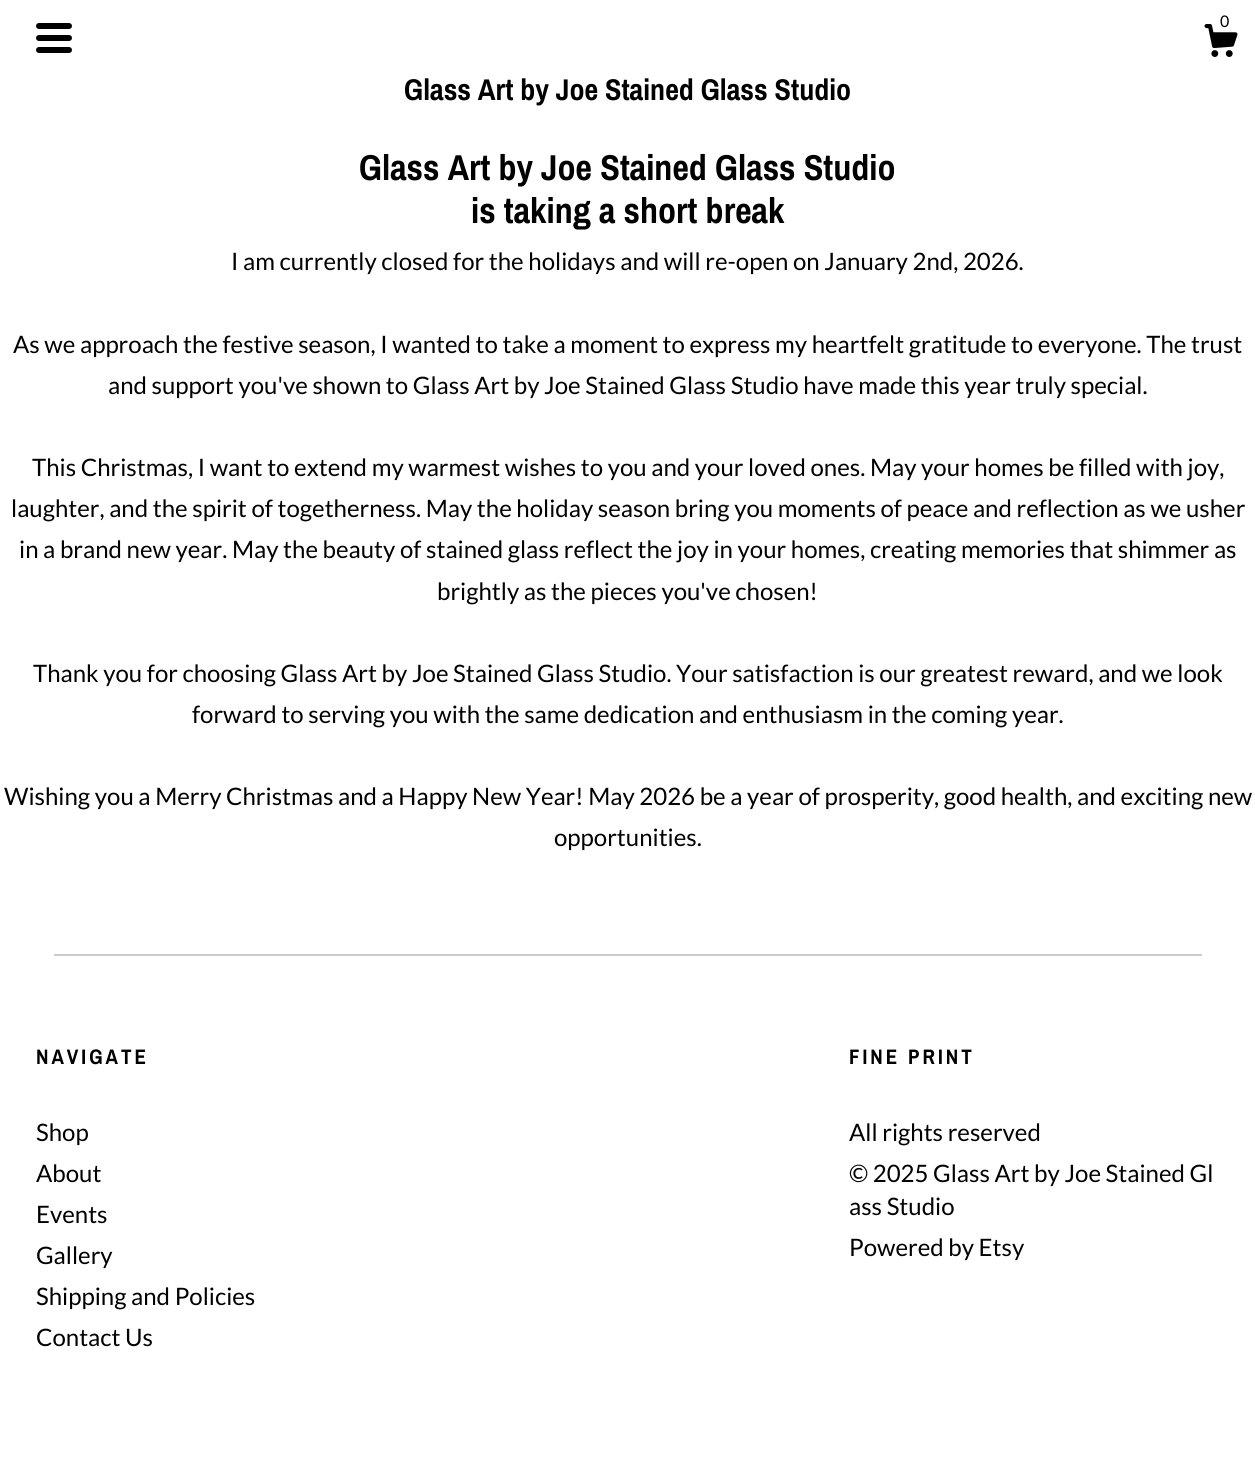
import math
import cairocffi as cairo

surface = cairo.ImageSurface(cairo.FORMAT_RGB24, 1255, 1482)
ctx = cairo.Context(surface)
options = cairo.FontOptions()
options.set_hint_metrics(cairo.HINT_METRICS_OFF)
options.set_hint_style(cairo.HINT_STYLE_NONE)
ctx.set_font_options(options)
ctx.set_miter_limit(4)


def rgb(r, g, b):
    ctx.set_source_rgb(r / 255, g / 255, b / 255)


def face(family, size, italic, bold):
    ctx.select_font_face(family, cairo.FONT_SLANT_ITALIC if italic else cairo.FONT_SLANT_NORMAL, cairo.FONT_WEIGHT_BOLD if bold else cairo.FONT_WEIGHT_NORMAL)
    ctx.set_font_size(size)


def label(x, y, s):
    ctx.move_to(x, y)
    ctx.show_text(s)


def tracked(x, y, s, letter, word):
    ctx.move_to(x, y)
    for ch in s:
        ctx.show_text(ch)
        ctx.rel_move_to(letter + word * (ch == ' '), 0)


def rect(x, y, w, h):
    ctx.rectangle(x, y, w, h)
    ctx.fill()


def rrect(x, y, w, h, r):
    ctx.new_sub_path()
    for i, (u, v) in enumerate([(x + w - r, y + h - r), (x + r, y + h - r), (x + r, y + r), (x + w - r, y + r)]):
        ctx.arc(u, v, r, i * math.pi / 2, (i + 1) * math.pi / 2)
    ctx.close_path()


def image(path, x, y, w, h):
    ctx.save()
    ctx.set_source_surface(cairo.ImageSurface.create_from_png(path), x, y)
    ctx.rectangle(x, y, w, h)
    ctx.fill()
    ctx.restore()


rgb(255, 255, 255)
ctx.paint()
image('image0.png', 1204, 24, 34, 33)
face('Lato', 16, 0, 0)
rgb(0, 0, 0)
label(1220, 27, '0')
rrect(36, 23, 36, 6, 3)
ctx.fill()
rrect(36, 35, 36, 6, 3)
ctx.fill()
rrect(36, 47, 36, 6, 3)
ctx.fill()
face('Archivo Narrow', 30, 0, 1)
label(404, 100, 'Glass Art by Joe Stained Glass Studio')
face('Archivo Narrow', 36, 0, 1)
label(359, 180, 'Glass Art by Joe Stained Glass Studio')
label(471, 223, 'is taking a short break')
face('Lato', 24, 0, 0)
label(231, 270, 'I am currently closed for the holidays and will re-open on January 2nd, 2026.')
label(13, 353, 'As we approach the festive season, I wanted to take a moment to express my heartfelt gratitude to everyone. The trust')
label(108, 394, 'and support you\'ve shown to Glass Art by Joe Stained Glass Studio have made this year truly special.')
label(32, 476, 'This Christmas, I want to extend my warmest wishes to you and your loved ones. May your homes be filled with joy,')
label(11, 517, 'laughter, and the spirit of togetherness. May the holiday season bring you moments of peace and reflection as we usher')
label(19, 558, 'in a brand new year. May the beauty of stained glass reflect the joy in your homes, creating memories that shimmer as')
label(437, 600, 'brightly as the pieces you\'ve chosen!')
label(33, 682, 'Thank you for choosing Glass Art by Joe Stained Glass Studio. Your satisfaction is our greatest reward, and we look')
label(192, 723, 'forward to serving you with the same dedication and enthusiasm in the coming year.')
label(4, 805, 'Wishing you a Merry Christmas and a Happy New Year! May 2026 be a year of prosperity, good health, and exciting new')
label(554, 846, 'opportunities.')
rgb(204, 204, 204)
rect(54, 954, 1148, 2)
face('Archivo Narrow', 21, 0, 1)
rgb(0, 0, 0)
tracked(36, 1064, 'NAVIGATE', 3, 0)
face('Lato', 24, 0, 0)
label(36, 1141, 'Shop')
label(36, 1182, 'About')
label(36, 1223, 'Events')
label(36, 1264, 'Gallery')
label(36, 1305, 'Shipping and Policies')
label(36, 1346, 'Contact Us')
face('Archivo Narrow', 21, 0, 1)
tracked(849, 1064, 'FINE PRINT', 3, 0)
face('Lato', 24, 0, 0)
label(849, 1141, 'All rights reserved')
label(849, 1182, '© 2025 Glass Art by Joe Stained Gl')
label(849, 1215, 'ass Studio')
label(849, 1256, 'Powered by Etsy')
surface.write_to_png('render.png')
